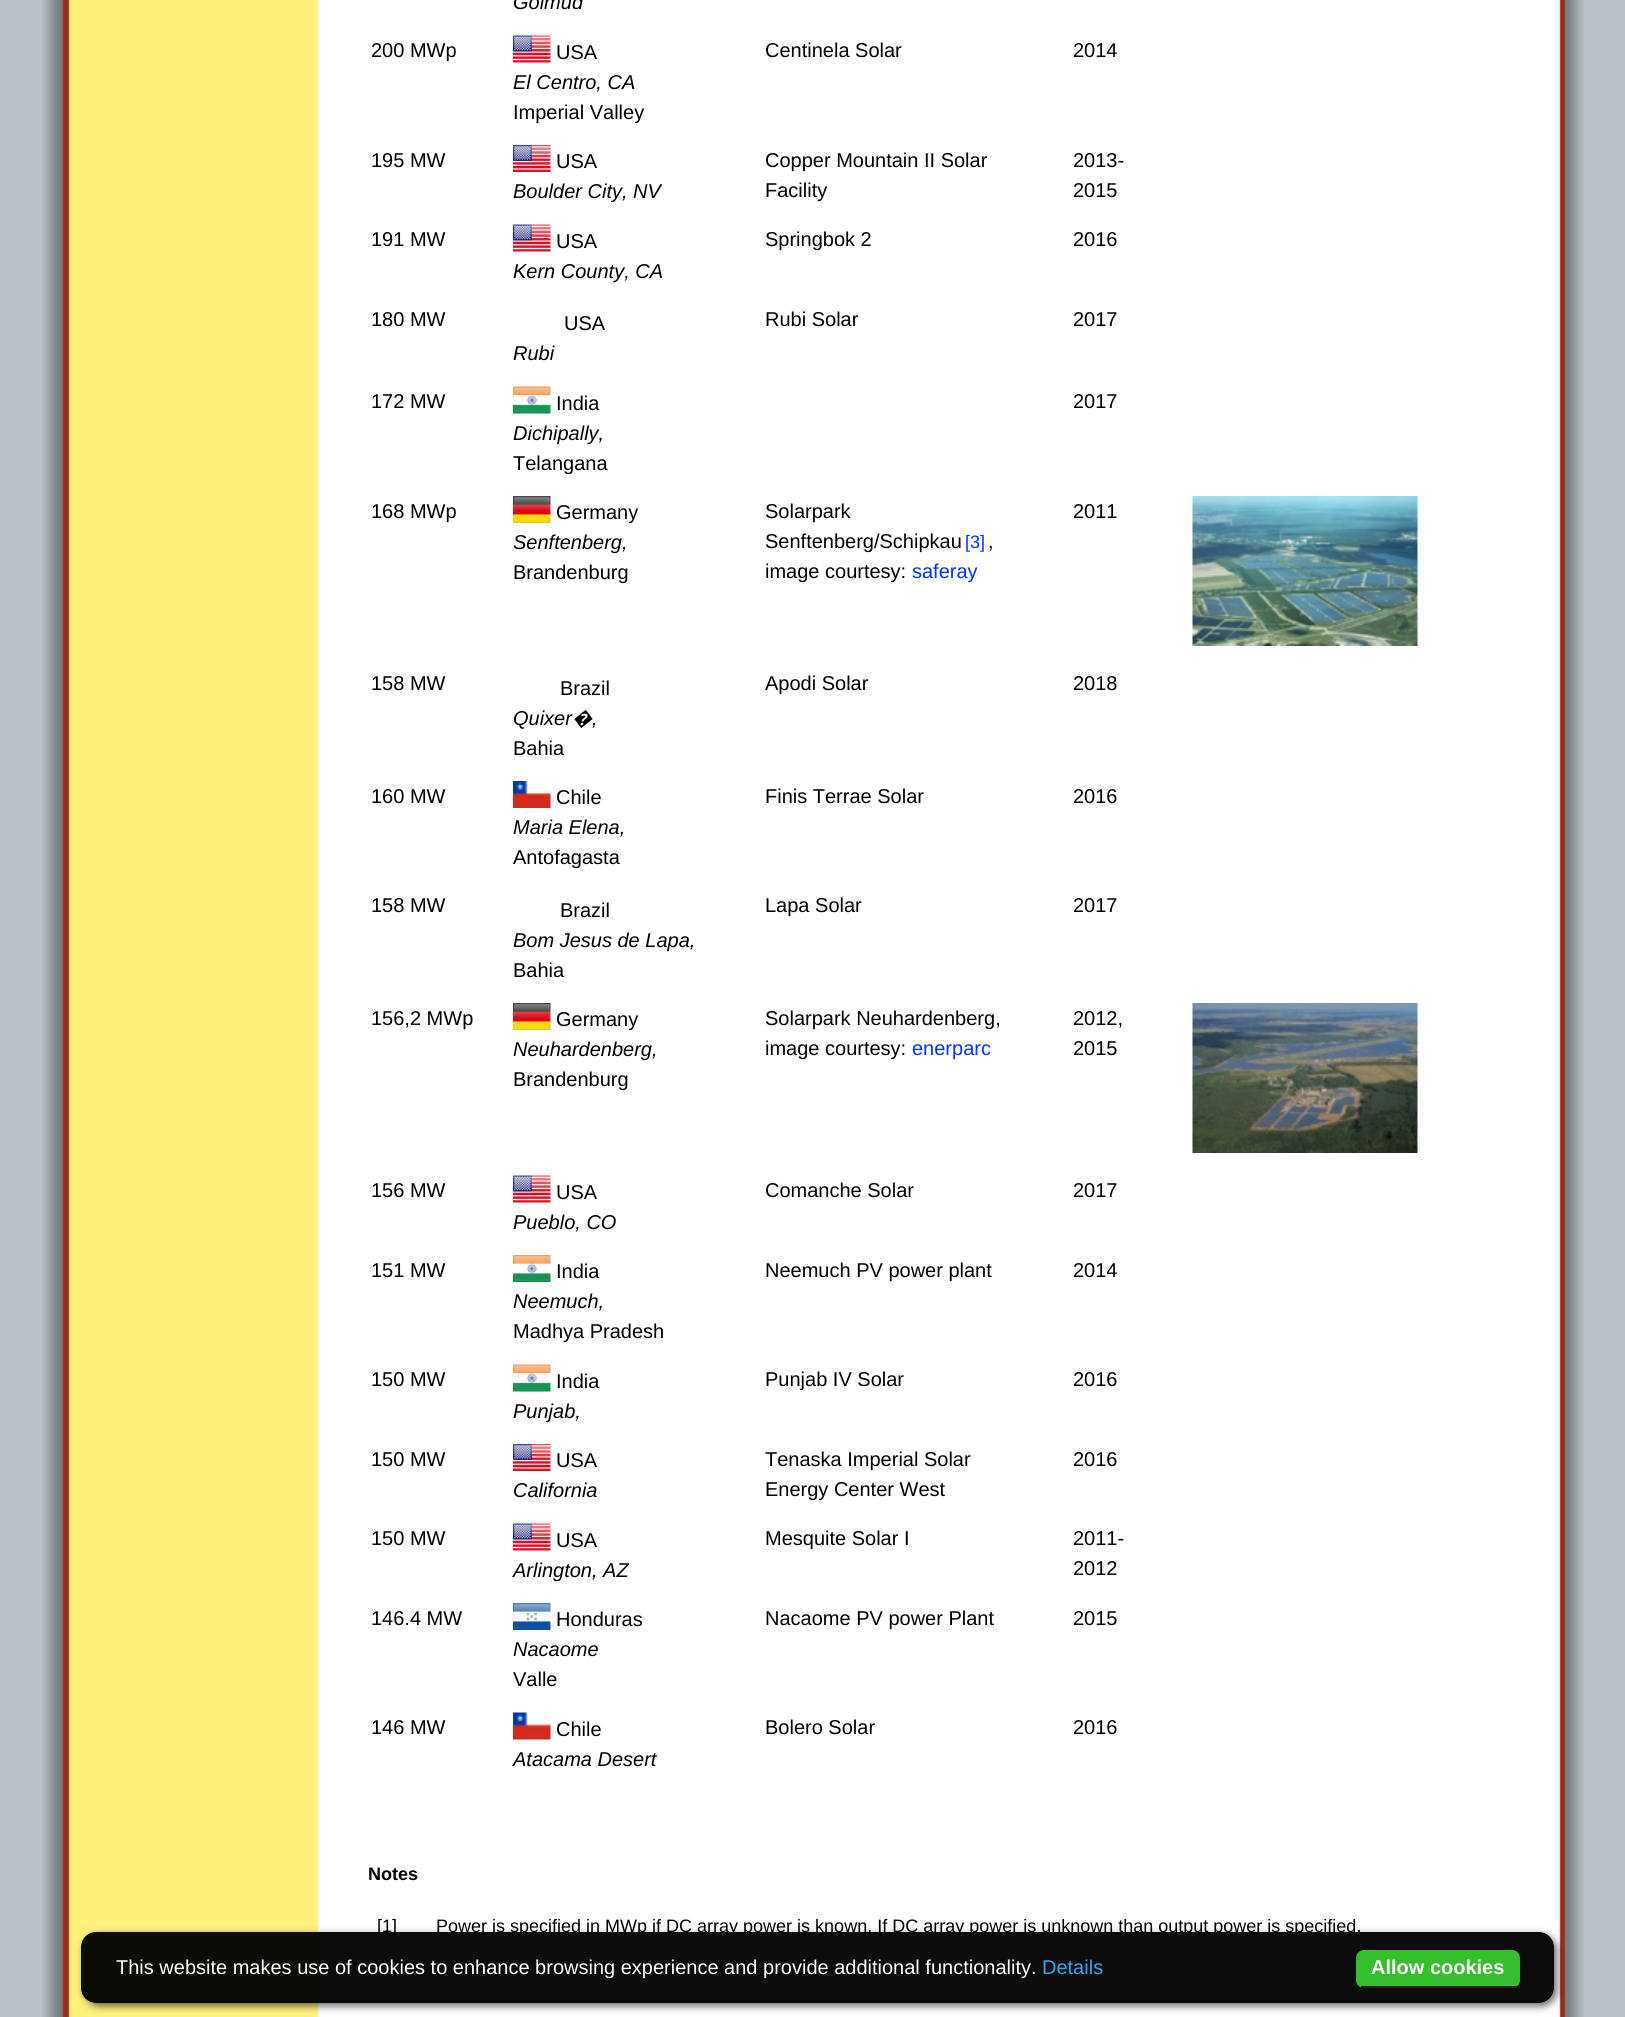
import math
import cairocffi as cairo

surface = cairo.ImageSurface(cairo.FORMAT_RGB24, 1625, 2017)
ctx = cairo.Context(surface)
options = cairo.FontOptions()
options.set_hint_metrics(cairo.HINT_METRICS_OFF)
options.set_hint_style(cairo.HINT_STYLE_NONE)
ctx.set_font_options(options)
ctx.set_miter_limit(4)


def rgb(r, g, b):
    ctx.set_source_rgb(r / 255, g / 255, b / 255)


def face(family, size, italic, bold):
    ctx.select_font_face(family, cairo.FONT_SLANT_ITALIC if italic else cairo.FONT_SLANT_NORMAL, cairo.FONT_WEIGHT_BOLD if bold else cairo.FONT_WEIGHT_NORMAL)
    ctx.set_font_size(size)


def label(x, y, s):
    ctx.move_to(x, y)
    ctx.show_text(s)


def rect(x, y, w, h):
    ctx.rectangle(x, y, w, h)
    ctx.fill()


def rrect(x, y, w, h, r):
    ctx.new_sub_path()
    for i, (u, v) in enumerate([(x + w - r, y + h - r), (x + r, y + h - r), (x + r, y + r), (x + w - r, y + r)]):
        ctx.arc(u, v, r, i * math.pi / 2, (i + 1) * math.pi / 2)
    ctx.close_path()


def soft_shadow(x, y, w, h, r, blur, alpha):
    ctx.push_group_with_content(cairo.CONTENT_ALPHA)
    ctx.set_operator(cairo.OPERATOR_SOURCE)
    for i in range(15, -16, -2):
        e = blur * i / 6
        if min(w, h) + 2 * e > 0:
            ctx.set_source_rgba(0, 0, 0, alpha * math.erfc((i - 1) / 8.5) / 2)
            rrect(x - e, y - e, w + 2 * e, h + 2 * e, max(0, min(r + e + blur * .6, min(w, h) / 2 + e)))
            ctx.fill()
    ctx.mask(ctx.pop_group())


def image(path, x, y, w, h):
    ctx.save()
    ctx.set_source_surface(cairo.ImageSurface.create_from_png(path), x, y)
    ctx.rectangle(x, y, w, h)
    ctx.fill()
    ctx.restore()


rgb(185, 194, 199)
ctx.paint()
image('image0.png', 42, 0, 1542, 2017)
image('image1.png', 67, 0, 1497, 2017)
rgb(148, 60, 51)
rect(1564, 0, 1, 2017)
face('Liberation Sans', 20, 1, 0)
rgb(0, 0, 0)
label(513, 9, 'Golmud')
face('Liberation Sans', 20, 0, 0)
label(371, 57, '200 MWp')
image('image2.png', 513, 35, 38, 28)
label(556, 59, 'USA')
face('Liberation Sans', 20, 1, 0)
label(513, 89, 'El Centro, CA')
face('Liberation Sans', 20, 0, 0)
label(513, 119, 'Imperial Valley')
label(765, 57, 'Centinela Solar')
label(1073, 57, '2014')
label(371, 167, '195 MW')
image('image3.png', 513, 145, 38, 27)
label(556, 168, 'USA')
face('Liberation Sans', 20, 1, 0)
label(513, 198, 'Boulder City, NV')
face('Liberation Sans', 20, 0, 0)
label(765, 167, 'Copper Mountain II Solar')
label(765, 197, 'Facility')
label(1073, 167, '2013-')
label(1073, 197, '2015')
label(371, 246, '191 MW')
image('image2.png', 513, 224, 38, 28)
label(556, 248, 'USA')
face('Liberation Sans', 20, 1, 0)
label(513, 278, 'Kern County, CA')
face('Liberation Sans', 20, 0, 0)
label(765, 246, 'Springbok 2')
label(1073, 246, '2016')
label(371, 326, '180 MW')
label(564, 330, 'USA')
face('Liberation Sans', 20, 1, 0)
label(513, 360, 'Rubi')
face('Liberation Sans', 20, 0, 0)
label(765, 326, 'Rubi Solar')
label(1073, 326, '2017')
label(371, 408, '172 MW')
image('image4.png', 513, 386, 38, 28)
label(556, 410, 'India')
face('Liberation Sans', 20, 1, 0)
label(513, 440, 'Dichipally,')
face('Liberation Sans', 20, 0, 0)
label(513, 470, 'Telangana')
label(1073, 408, '2017')
label(371, 518, '168 MWp')
image('image5.png', 513, 496, 38, 27)
label(556, 519, 'Germany')
face('Liberation Sans', 20, 1, 0)
label(513, 549, 'Senftenberg,')
face('Liberation Sans', 20, 0, 0)
label(513, 579, 'Brandenburg')
label(765, 518, 'Solarpark')
label(765, 548, 'Senftenberg/Schipkau')
face('Liberation Sans', 18, 0, 0)
rgb(0, 51, 255)
label(965, 548, '[3]')
face('Liberation Sans', 20, 0, 0)
rgb(0, 0, 0)
label(988, 548, ',')
label(765, 578, 'image courtesy:')
rgb(0, 51, 255)
label(912, 578, 'saferay')
rgb(0, 0, 0)
label(1073, 518, '2011')
image('image6.png', 1192, 496, 226, 150)
label(371, 690, '158 MW')
label(560, 695, 'Brazil')
face('Liberation Sans', 20, 1, 0)
label(513, 725, 'Quixer')
face('Noto Sans', 20, 1, 0)
label(572, 725, '�')
face('Liberation Sans', 20, 1, 0)
label(592, 725, ',')
face('Liberation Sans', 20, 0, 0)
label(513, 755, 'Bahia')
label(765, 690, 'Apodi Solar')
label(1073, 690, '2018')
label(371, 803, '160 MW')
image('image7.png', 513, 781, 38, 27)
label(556, 804, 'Chile')
face('Liberation Sans', 20, 1, 0)
label(513, 834, 'Maria Elena,')
face('Liberation Sans', 20, 0, 0)
label(513, 864, 'Antofagasta')
label(765, 803, 'Finis Terrae Solar')
label(1073, 803, '2016')
label(371, 912, '158 MW')
label(560, 917, 'Brazil')
face('Liberation Sans', 20, 1, 0)
label(513, 947, 'Bom Jesus de Lapa,')
face('Liberation Sans', 20, 0, 0)
label(513, 977, 'Bahia')
label(765, 912, 'Lapa Solar')
label(1073, 912, '2017')
label(371, 1025, '156,2 MWp')
image('image5.png', 513, 1003, 38, 27)
label(556, 1026, 'Germany')
face('Liberation Sans', 20, 1, 0)
label(513, 1056, 'Neuhardenberg,')
face('Liberation Sans', 20, 0, 0)
label(513, 1086, 'Brandenburg')
label(765, 1025, 'Solarpark Neuhardenberg,')
label(765, 1055, 'image courtesy:')
rgb(0, 51, 255)
label(912, 1055, 'enerparc')
rgb(0, 0, 0)
label(1073, 1025, '2012,')
label(1073, 1055, '2015')
image('image8.png', 1192, 1003, 226, 150)
label(371, 1197, '156 MW')
image('image2.png', 513, 1175, 38, 28)
label(556, 1199, 'USA')
face('Liberation Sans', 20, 1, 0)
label(513, 1229, 'Pueblo, CO')
face('Liberation Sans', 20, 0, 0)
label(765, 1197, 'Comanche Solar')
label(1073, 1197, '2017')
label(371, 1277, '151 MW')
image('image9.png', 513, 1255, 38, 27)
label(556, 1278, 'India')
face('Liberation Sans', 20, 1, 0)
label(513, 1308, 'Neemuch,')
face('Liberation Sans', 20, 0, 0)
label(513, 1338, 'Madhya Pradesh')
label(765, 1277, 'Neemuch PV power plant')
label(1073, 1277, '2014')
label(371, 1386, '150 MW')
image('image4.png', 513, 1364, 38, 28)
label(556, 1388, 'India')
face('Liberation Sans', 20, 1, 0)
label(513, 1418, 'Punjab,')
face('Liberation Sans', 20, 0, 0)
label(765, 1386, 'Punjab IV Solar')
label(1073, 1386, '2016')
label(371, 1466, '150 MW')
image('image3.png', 513, 1444, 38, 27)
label(556, 1467, 'USA')
face('Liberation Sans', 20, 1, 0)
label(513, 1497, 'California')
face('Liberation Sans', 20, 0, 0)
label(765, 1466, 'Tenaska Imperial Solar')
label(765, 1496, 'Energy Center West')
label(1073, 1466, '2016')
label(371, 1545, '150 MW')
image('image2.png', 513, 1523, 38, 28)
label(556, 1547, 'USA')
face('Liberation Sans', 20, 1, 0)
label(513, 1577, 'Arlington, AZ')
face('Liberation Sans', 20, 0, 0)
label(765, 1545, 'Mesquite Solar I')
label(1073, 1545, '2011-')
label(1073, 1575, '2012')
label(371, 1625, '146.4 MW')
image('image10.png', 513, 1603, 38, 27)
label(556, 1626, 'Honduras')
face('Liberation Sans', 20, 1, 0)
label(513, 1656, 'Nacaome')
face('Liberation Sans', 20, 0, 0)
label(513, 1686, 'Valle')
label(765, 1625, 'Nacaome PV power Plant')
label(1073, 1625, '2015')
label(371, 1734, '146 MW')
image('image11.png', 513, 1712, 38, 28)
label(556, 1736, 'Chile')
face('Liberation Sans', 20, 1, 0)
label(513, 1766, 'Atacama Desert')
face('Liberation Sans', 20, 0, 0)
label(765, 1734, 'Bolero Solar')
label(1073, 1734, '2016')
face('Liberation Sans', 18, 0, 1)
label(368, 1880, 'Notes')
face('Liberation Sans', 18, 0, 0)
label(377, 1932, '[1]')
label(436, 1932, 'Power is specified in MWp if DC array power is known. If DC array power is unknown than output power is specified.')
ctx.save()
ctx.set_fill_rule(cairo.FILL_RULE_EVEN_ODD)
ctx.new_path()
ctx.move_to(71, 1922)
ctx.line_to(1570, 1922)
ctx.line_to(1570, 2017)
ctx.line_to(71, 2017)
ctx.close_path()
ctx.move_to(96, 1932)
ctx.line_to(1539, 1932)
ctx.curve_to(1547.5, 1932, 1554, 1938.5, 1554, 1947)
ctx.line_to(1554, 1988)
ctx.curve_to(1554, 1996.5, 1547.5, 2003, 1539, 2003)
ctx.line_to(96, 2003)
ctx.curve_to(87.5, 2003, 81, 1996.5, 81, 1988)
ctx.line_to(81, 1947)
ctx.curve_to(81, 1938.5, 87.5, 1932, 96, 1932)
ctx.close_path()
ctx.clip()
rgb(0, 0, 0)
soft_shadow(84, 1935, 1473, 71, 15, 4, 0.6)
ctx.restore()
ctx.set_source_rgba(0, 0, 0, 0.95)
rrect(81, 1932, 1473, 71, 15)
ctx.fill()
face('Liberation Sans', 20, 0, 0)
rgb(255, 255, 255)
label(116, 1974, 'This website makes use of cookies to enhance browsing experience and provide additional functionality.')
rgb(49, 168, 240)
label(1042, 1974, 'Details')
rgb(54, 191, 45)
rrect(1356, 1950, 164, 38, 8)
ctx.fill()
rgb(34, 34, 34)
rect(1361, 1986, 156, 2)
face('Liberation Sans', 20, 0, 1)
rgb(255, 255, 255)
label(1371, 1974, 'Allow cookies')
surface.write_to_png('render.png')
